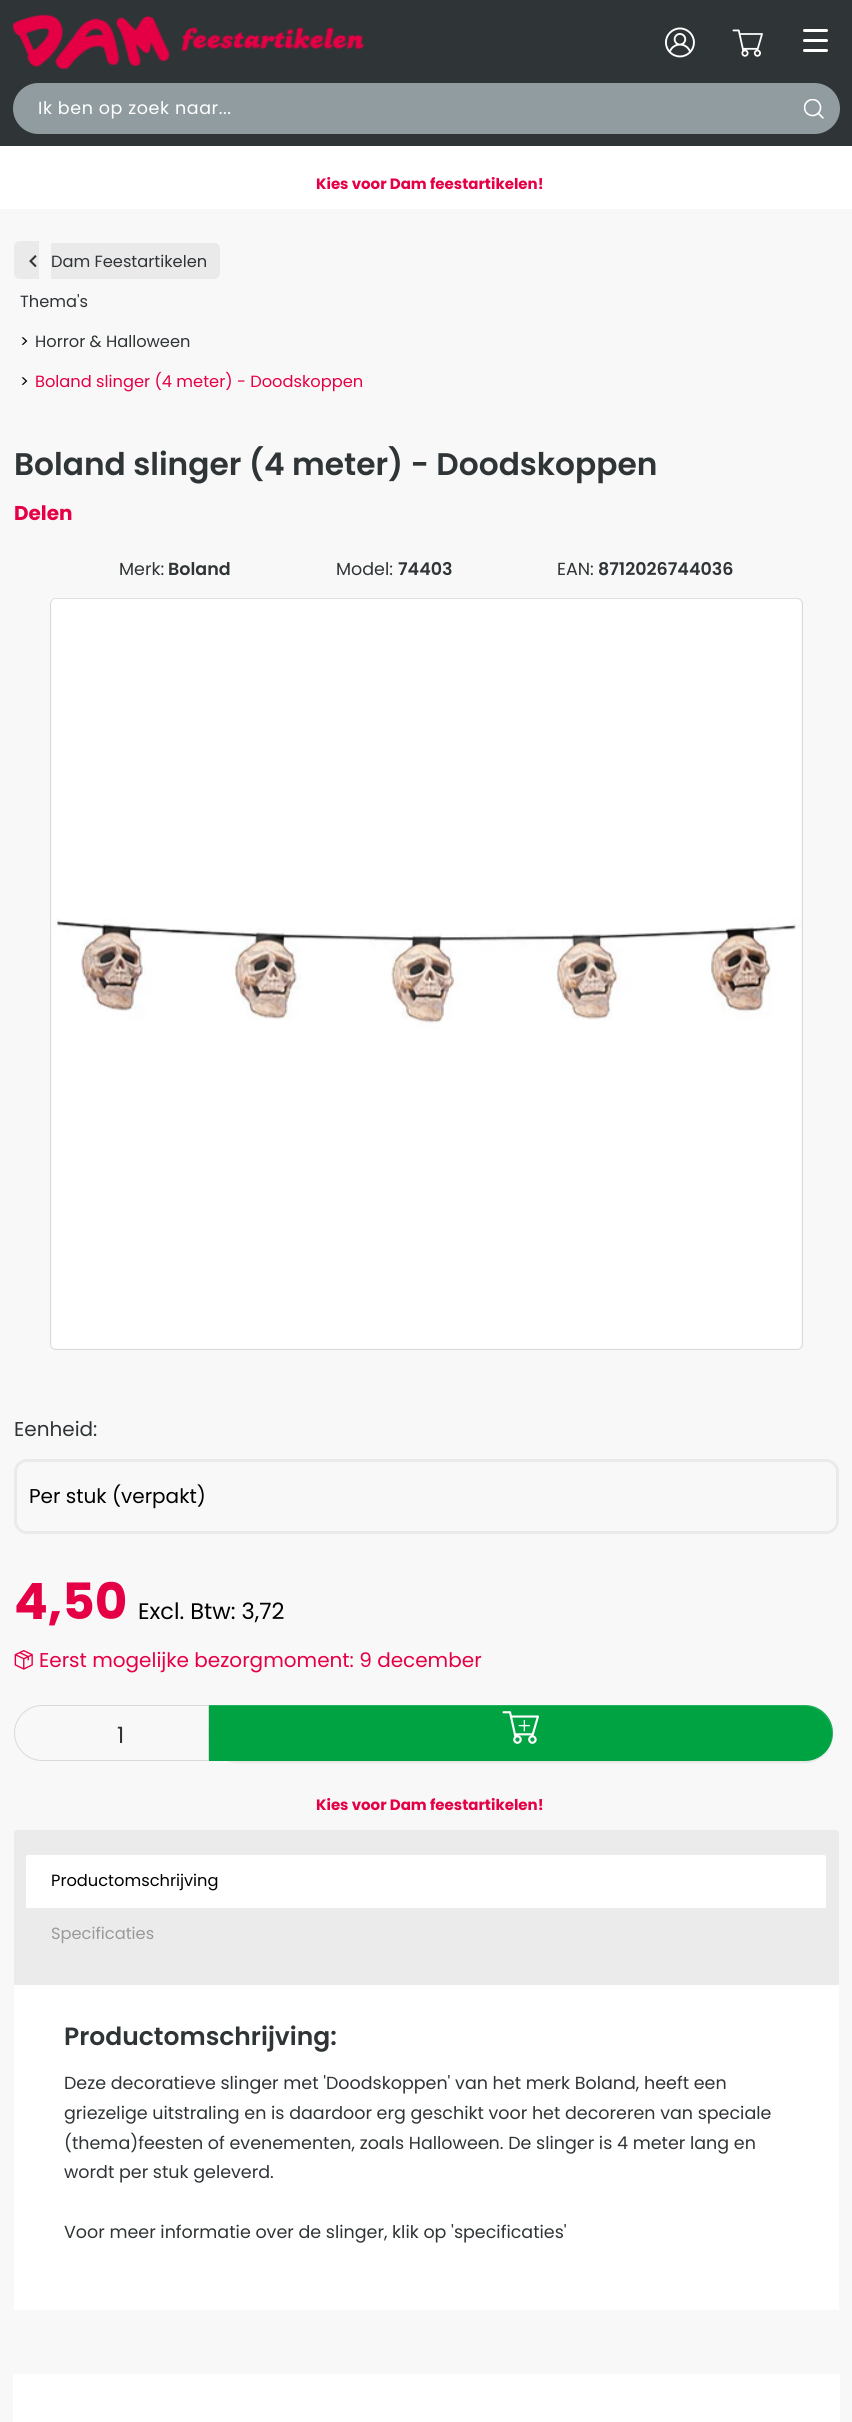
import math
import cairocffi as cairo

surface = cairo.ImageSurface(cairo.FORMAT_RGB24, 852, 2422)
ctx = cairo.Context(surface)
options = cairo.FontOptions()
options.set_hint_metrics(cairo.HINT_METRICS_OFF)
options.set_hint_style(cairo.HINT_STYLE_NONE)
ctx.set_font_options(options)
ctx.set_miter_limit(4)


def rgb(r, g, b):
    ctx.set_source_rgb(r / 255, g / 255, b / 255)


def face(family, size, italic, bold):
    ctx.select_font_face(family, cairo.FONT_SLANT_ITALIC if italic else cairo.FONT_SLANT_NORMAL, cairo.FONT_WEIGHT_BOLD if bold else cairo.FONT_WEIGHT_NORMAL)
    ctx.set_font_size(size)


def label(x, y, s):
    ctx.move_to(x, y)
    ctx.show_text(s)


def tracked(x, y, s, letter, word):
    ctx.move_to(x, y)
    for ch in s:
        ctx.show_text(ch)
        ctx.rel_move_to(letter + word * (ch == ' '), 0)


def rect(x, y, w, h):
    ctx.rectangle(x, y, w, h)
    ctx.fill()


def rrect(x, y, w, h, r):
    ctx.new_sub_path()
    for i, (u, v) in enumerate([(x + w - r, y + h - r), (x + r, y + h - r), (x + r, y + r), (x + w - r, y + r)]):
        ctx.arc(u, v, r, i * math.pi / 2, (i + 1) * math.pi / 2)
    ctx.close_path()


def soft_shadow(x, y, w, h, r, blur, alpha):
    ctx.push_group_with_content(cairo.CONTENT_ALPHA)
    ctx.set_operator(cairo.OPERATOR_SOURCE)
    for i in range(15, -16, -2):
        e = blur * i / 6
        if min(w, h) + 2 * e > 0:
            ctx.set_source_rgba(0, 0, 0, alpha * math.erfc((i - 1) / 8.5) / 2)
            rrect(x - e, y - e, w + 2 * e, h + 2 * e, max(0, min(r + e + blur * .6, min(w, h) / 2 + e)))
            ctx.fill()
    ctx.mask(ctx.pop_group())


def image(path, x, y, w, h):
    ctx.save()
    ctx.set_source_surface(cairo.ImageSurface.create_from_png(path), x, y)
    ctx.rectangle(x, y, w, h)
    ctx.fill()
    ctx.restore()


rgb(248, 248, 248)
ctx.paint()
rgb(47, 52, 54)
rect(0, 0, 852, 146)
image('image0.png', 12, 14, 352, 55)
image('image1.png', 665, 27, 30, 31)
image('image2.png', 732, 29, 31, 28)
rgb(255, 255, 255)
rrect(803, 29, 25, 3, 1.5)
ctx.fill()
rrect(803, 39, 25, 3, 1.5)
ctx.fill()
rrect(803, 49, 25, 3, 1.5)
ctx.fill()
rgb(145, 156, 160)
rrect(13, 83, 827, 51, 25.5)
ctx.fill()
face('Poppins', 17.5, 0, 0)
rgb(255, 255, 255)
tracked(38, 114, 'Ik ben op zoek naar...', 0.6, 0)
image('image3.png', 804, 99, 20, 20)
rect(0, 146, 852, 63)
face('Poppins', 15, 0, 1)
rgb(229, 0, 70)
label(316, 189, 'Kies voor Dam feestartikelen!')
rgb(234, 234, 235)
ctx.new_path()
ctx.move_to(20, 241)
ctx.line_to(39, 241)
ctx.line_to(39, 279)
ctx.line_to(20, 279)
ctx.curve_to(16.5, 279, 14, 276.5, 14, 273)
ctx.line_to(14, 247)
ctx.curve_to(14, 243.5, 16.5, 241, 20, 241)
ctx.close_path()
ctx.fill()
ctx.new_path()
ctx.move_to(51, 243)
ctx.line_to(214, 243)
ctx.curve_to(217.5, 243, 220, 245.5, 220, 249)
ctx.line_to(220, 273)
ctx.curve_to(220, 276.5, 217.5, 279, 214, 279)
ctx.line_to(51, 279)
ctx.close_path()
ctx.fill()
image('image4.png', 29, 255, 8, 13)
face('Poppins', 16.25, 0, 0)
rgb(47, 52, 54)
label(51, 267, 'Dam Feestartikelen')
label(20, 307, 'Thema\'s')
rgb(0, 0, 0)
label(20, 347, '>')
rgb(47, 52, 54)
label(35, 347, 'Horror & Halloween')
rgb(0, 0, 0)
label(20, 387, '>')
rgb(229, 0, 70)
label(35, 387, 'Boland slinger (4 meter) - Doodskoppen')
face('Poppins SemiBold', 31.25, 0, 0)
rgb(47, 52, 54)
label(14, 475, 'Boland slinger (4 meter) - Doodskoppen')
face('Poppins', 20, 0, 1)
rgb(229, 0, 70)
label(14, 520, 'Delen')
face('Poppins', 17.5, 0, 0)
rgb(47, 52, 54)
label(119, 575, 'Merk:')
face('Poppins SemiBold', 17.5, 0, 0)
label(168, 575, 'Boland')
face('Poppins', 17.5, 0, 0)
label(336, 575, 'Model:')
face('Poppins SemiBold', 17.5, 0, 0)
label(398, 575, '74403')
face('Poppins', 17.5, 0, 0)
label(557, 575, 'EAN:')
face('Poppins SemiBold', 17.5, 0, 0)
label(598, 575, '8712026744036')
rrect(50.5, 598.5, 752, 751, 5.5)
rgb(217, 217, 213)
ctx.set_line_width(1)
ctx.stroke()
image('image5.png', 51, 598, 750, 751)
face('Poppins', 20, 0, 0)
rgb(47, 52, 54)
label(14, 1436, 'Eenheid:')
rrect(15.5, 1460.5, 822, 72, 11.5)
rgb(234, 234, 235)
ctx.set_line_width(3)
ctx.stroke()
rgb(0, 0, 0)
label(29, 1503, 'Per stuk (verpakt)')
face('Poppins', 50, 0, 1)
rgb(229, 0, 70)
label(14, 1619, '4,50')
face('Poppins', 22.5, 0, 0)
rgb(0, 0, 0)
label(138, 1619, 'Excl. Btw: 3,72')
image('image6.png', 14, 1650, 19, 20)
face('Poppins', 20, 0, 0)
rgb(229, 0, 70)
label(39, 1667, 'Eerst mogelijke bezorgmoment: 9 december')
ctx.new_path()
ctx.move_to(42, 1705.5)
ctx.line_to(208.5, 1705.5)
ctx.line_to(208.5, 1760.5)
ctx.line_to(42, 1760.5)
ctx.curve_to(27, 1760.5, 14.5, 1748, 14.5, 1733)
ctx.curve_to(14.5, 1718, 27, 1705.5, 42, 1705.5)
ctx.close_path()
rgb(217, 217, 213)
ctx.set_line_width(1)
ctx.stroke()
face('Poppins', 22.5, 0, 0)
rgb(47, 52, 54)
label(117, 1743, '1')
rgb(0, 0, 0)
soft_shadow(209, 1706, 624, 57, 28.5, 0.5, 0.07)
rgb(0, 163, 66)
ctx.new_path()
ctx.move_to(209, 1705)
ctx.line_to(805, 1705)
ctx.curve_to(820.5, 1705, 833, 1717.5, 833, 1733)
ctx.curve_to(833, 1748.5, 820.5, 1761, 805, 1761)
ctx.line_to(209, 1761)
ctx.close_path()
ctx.fill()
ctx.set_source_rgba(1, 1, 1, 0.15)
ctx.new_path()
ctx.move_to(209, 1706)
ctx.line_to(804, 1706)
ctx.curve_to(820, 1706, 832, 1719, 832, 1734)
ctx.curve_to(832, 1740, 830, 1745, 828, 1750)
ctx.curve_to(831, 1745, 833, 1739, 833, 1733)
ctx.curve_to(833, 1718, 820, 1705, 805, 1705)
ctx.line_to(209, 1705)
ctx.close_path()
ctx.fill()
image('image7.png', 502, 1711, 37, 33)
image('image8.png', 518, 1720, 12, 12)
face('Poppins', 15, 0, 1)
rgb(229, 0, 70)
label(316, 1810, 'Kies voor Dam feestartikelen!')
rgb(255, 255, 255)
rect(14, 1830, 825, 480)
rgb(235, 235, 235)
ctx.new_path()
ctx.move_to(16.5, 1830)
ctx.line_to(836.5, 1830)
ctx.curve_to(838, 1830, 839, 1831, 839, 1832.5)
ctx.line_to(839, 1985)
ctx.line_to(14, 1985)
ctx.line_to(14, 1832.5)
ctx.curve_to(14, 1831, 15, 1830, 16.5, 1830)
ctx.close_path()
ctx.fill()
rgb(255, 255, 255)
ctx.new_path()
ctx.move_to(28.5, 1855)
ctx.line_to(823.5, 1855)
ctx.curve_to(825, 1855, 826, 1856, 826, 1857.5)
ctx.line_to(826, 1908)
ctx.line_to(26, 1908)
ctx.line_to(26, 1857.5)
ctx.curve_to(26, 1856, 27, 1855, 28.5, 1855)
ctx.close_path()
ctx.fill()
face('Poppins', 16.25, 0, 0)
rgb(0, 0, 0)
label(51, 1886, 'Productomschrijving')
rgb(153, 153, 153)
label(51, 1939, 'Specificaties')
face('Poppins SemiBold', 25, 0, 0)
rgb(47, 52, 54)
label(64, 2045, 'Productomschrijving:')
face('Poppins', 17.5, 0, 0)
label(64, 2089, 'Deze decoratieve slinger met \'Doodskoppen\' van het merk Boland, heeft een')
label(64, 2119, 'griezelige uitstraling en is daardoor erg geschikt voor het decoreren van speciale')
label(64, 2149, '(thema)feesten of evenementen, zoals Halloween. De slinger is 4 meter lang en')
label(64, 2178, 'wordt per stuk geleverd.')
label(64, 2238, 'Voor meer informatie over de slinger, klik op \'specificaties\'')
rgb(255, 255, 255)
rect(13, 2374, 827, 48)
surface.write_to_png('render.png')
